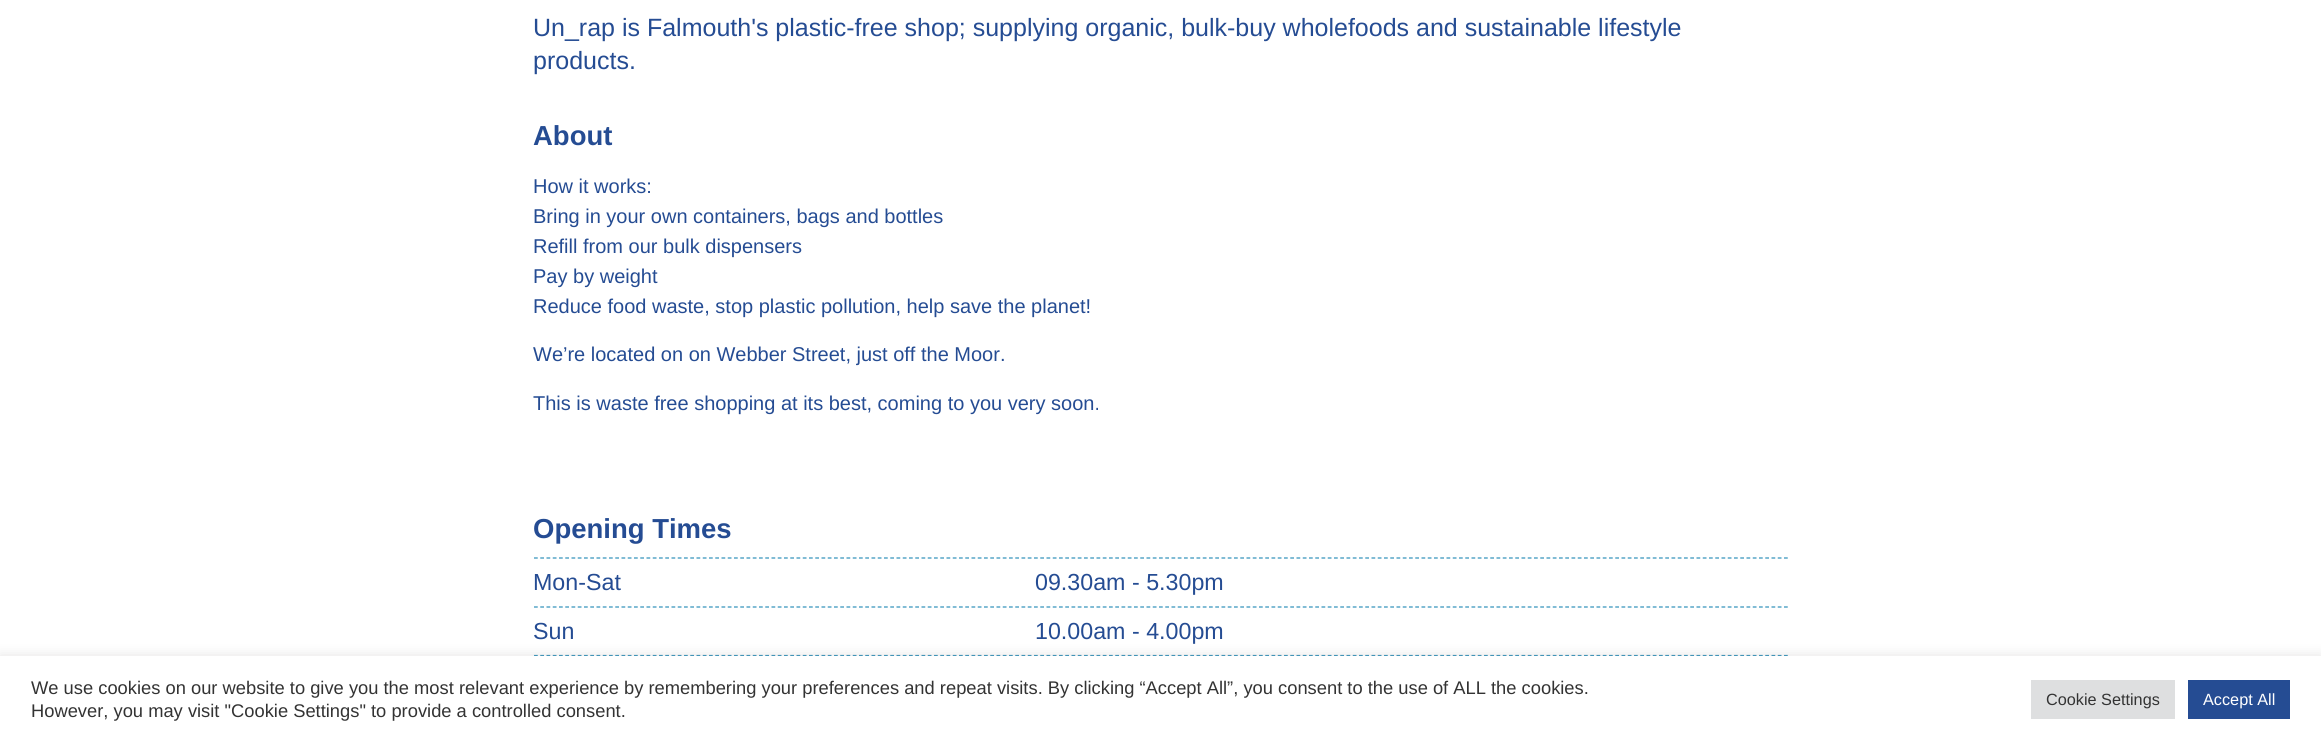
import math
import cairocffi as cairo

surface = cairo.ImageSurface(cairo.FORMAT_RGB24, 2321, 742)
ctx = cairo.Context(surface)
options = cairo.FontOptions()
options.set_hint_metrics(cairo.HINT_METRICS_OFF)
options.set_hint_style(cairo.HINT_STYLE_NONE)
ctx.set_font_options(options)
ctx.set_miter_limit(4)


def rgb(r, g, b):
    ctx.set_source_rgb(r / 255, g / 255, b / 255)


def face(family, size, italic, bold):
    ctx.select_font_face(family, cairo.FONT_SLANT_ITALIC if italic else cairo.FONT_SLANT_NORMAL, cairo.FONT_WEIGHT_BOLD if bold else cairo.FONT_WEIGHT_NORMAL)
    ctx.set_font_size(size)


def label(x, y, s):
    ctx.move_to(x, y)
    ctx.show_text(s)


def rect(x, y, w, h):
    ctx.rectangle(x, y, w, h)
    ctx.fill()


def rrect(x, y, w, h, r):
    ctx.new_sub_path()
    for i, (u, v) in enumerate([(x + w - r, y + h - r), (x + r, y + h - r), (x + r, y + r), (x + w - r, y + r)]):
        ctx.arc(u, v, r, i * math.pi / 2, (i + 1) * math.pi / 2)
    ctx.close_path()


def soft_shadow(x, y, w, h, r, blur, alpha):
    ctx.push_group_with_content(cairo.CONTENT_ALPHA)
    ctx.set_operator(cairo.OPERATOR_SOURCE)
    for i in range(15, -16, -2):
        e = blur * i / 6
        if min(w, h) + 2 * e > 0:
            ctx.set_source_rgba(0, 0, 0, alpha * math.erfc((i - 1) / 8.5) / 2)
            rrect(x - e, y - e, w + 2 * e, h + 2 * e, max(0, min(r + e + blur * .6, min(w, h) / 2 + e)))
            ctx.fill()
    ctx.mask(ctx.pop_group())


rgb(255, 255, 255)
ctx.paint()
face('Liberation Sans', 25, 0, 0)
rgb(37, 76, 147)
label(533, 36, 'Un_rap is Falmouth\'s plastic-free shop; supplying organic, bulk-buy wholefoods and sustainable lifestyle')
label(533, 69, 'products.')
face('Liberation Sans', 27.5, 0, 1)
label(533, 145, 'About')
face('Liberation Sans', 20, 0, 0)
label(533, 193, 'How it works:')
label(533, 223, 'Bring in your own containers, bags and bottles')
label(533, 253, 'Refill from our bulk dispensers')
label(533, 283, 'Pay by weight')
label(533, 313, 'Reduce food waste, stop plastic pollution, help save the planet!')
label(533, 361, 'We’re located on on Webber Street, just off the Moor.')
label(533, 410, 'This is waste free shopping at its best, coming to you very soon.')
face('Liberation Sans', 27.5, 0, 1)
label(533, 538, 'Opening Times')
ctx.new_path()
ctx.move_to(534, 558)
ctx.line_to(1789, 558)
rgb(47, 144, 186)
ctx.set_line_width(1.2)
ctx.set_dash([3.75, 2.5])
ctx.stroke()
ctx.new_path()
ctx.move_to(534, 607)
ctx.line_to(1789, 607)
ctx.stroke()
face('Liberation Sans', 23.25, 0, 0)
rgb(37, 76, 147)
label(533, 590, 'Mon-Sat')
label(1035, 590, '09.30am - 5.30pm')
ctx.new_path()
ctx.move_to(534, 655.5)
ctx.line_to(1789, 655.5)
rgb(47, 144, 186)
ctx.stroke()
rgb(37, 76, 147)
label(533, 639, 'Sun')
label(1035, 639, '10.00am - 4.00pm')
rgb(172, 171, 171)
soft_shadow(0, 655, 2321, 86, 0, 6, 0.3)
rgb(255, 255, 255)
rect(0, 656, 2321, 86)
face('Liberation Sans', 18.33, 0, 0)
rgb(51, 51, 51)
label(31, 694, 'We use cookies on our website to give you the most relevant experience by remembering your preferences and repeat visits. By clicking “Accept All”, you consent to the use of ALL the cookies.')
label(31, 717, 'However, you may visit "Cookie Settings" to provide a controlled consent.')
rgb(222, 223, 224)
rect(2031, 680, 144, 39)
face('Liberation Sans', 16.25, 0, 0)
rgb(51, 51, 51)
label(2046, 705, 'Cookie Settings')
rgb(37, 76, 147)
rect(2188, 680, 102, 39)
rgb(255, 255, 255)
label(2203, 705, 'Accept All')
surface.write_to_png('render.png')
